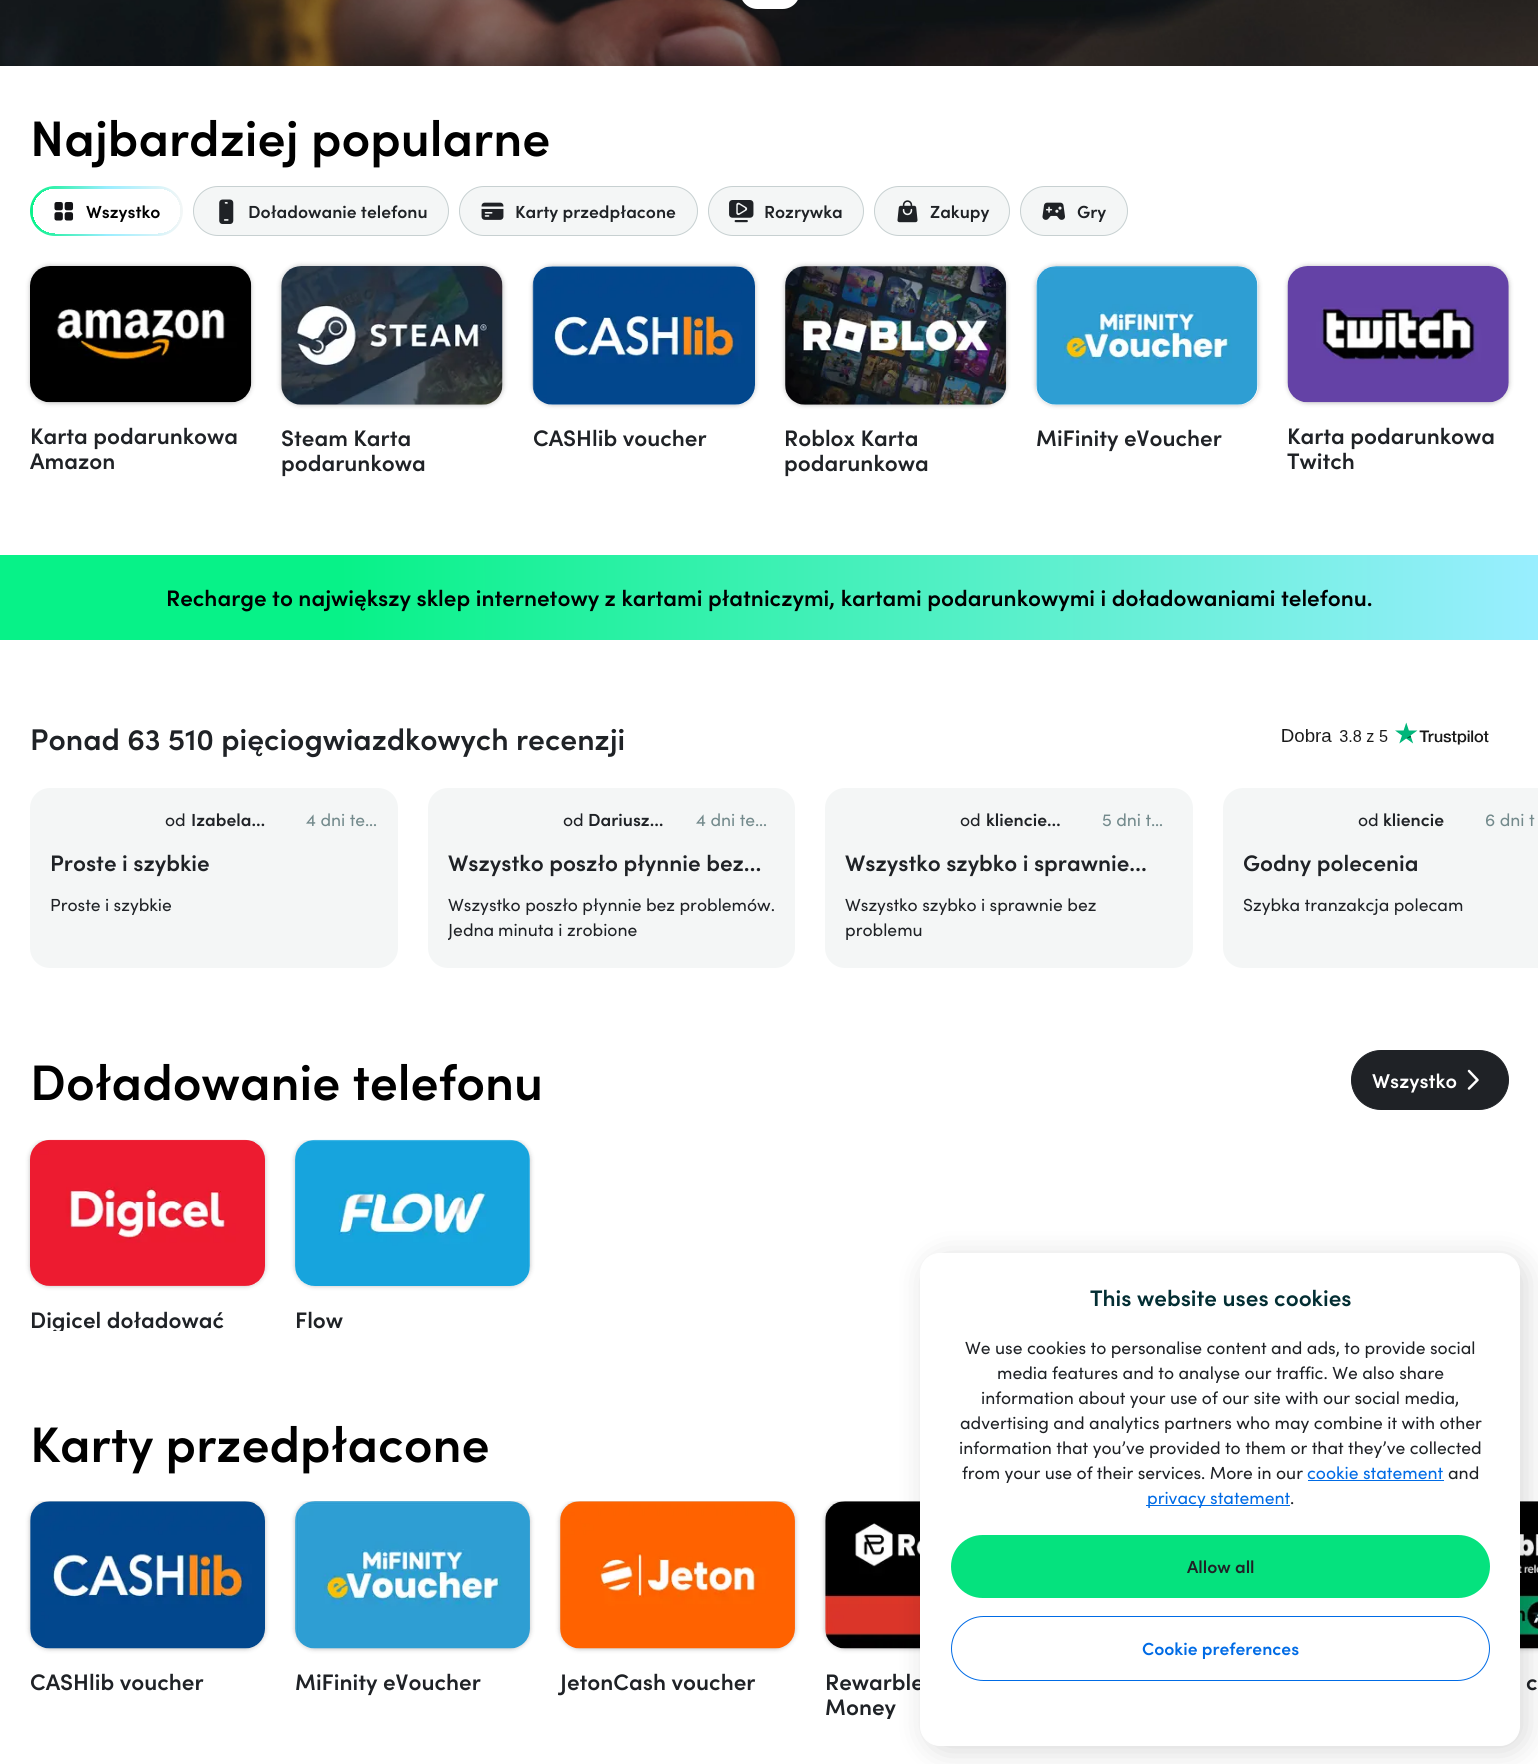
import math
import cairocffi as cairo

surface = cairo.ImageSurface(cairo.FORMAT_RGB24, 1538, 1764)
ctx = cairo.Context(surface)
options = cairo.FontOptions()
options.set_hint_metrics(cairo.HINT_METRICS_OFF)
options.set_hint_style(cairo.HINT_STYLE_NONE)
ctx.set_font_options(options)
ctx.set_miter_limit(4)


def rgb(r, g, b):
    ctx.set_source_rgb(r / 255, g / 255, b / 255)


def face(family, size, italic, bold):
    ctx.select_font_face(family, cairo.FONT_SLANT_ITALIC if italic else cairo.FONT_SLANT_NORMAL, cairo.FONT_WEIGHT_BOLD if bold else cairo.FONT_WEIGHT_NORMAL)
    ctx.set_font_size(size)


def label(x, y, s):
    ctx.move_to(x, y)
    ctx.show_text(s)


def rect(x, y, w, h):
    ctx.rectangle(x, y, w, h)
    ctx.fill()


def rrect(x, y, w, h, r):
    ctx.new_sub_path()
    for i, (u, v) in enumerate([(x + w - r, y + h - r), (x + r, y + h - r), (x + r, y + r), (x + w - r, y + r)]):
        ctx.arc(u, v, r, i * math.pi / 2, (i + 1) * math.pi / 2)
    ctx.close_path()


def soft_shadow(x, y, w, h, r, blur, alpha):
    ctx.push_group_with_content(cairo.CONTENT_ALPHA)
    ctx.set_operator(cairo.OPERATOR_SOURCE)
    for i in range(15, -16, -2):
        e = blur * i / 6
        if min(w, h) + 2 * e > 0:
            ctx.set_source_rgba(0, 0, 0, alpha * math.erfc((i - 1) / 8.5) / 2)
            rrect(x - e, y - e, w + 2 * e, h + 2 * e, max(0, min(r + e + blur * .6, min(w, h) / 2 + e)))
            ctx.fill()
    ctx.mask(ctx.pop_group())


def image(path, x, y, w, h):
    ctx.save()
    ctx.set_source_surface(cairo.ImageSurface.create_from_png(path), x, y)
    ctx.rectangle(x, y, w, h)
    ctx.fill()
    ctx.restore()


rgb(255, 255, 255)
ctx.paint()
image('image0.png', 0, 0, 1538, 66)
rgb(255, 255, 255)
rrect(740, -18, 60, 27, 17.5)
ctx.fill()
face('Sofia SemiBold', 50, 0, 0)
rgb(0, 0, 0)
label(30, 156, 'Najbardziej popularne')
gradient = cairo.LinearGradient(30, 211, 183, 211)
gradient.add_color_stop_rgba(0, 0.027, 0.949, 0.533, 1)
gradient.add_color_stop_rgba(0.5, 0.6, 0.933, 1, 1)
gradient.add_color_stop_rgba(1, 0.957, 0.965, 0.965, 1)
ctx.set_source(gradient)
rrect(30, 186, 153, 50, 25)
ctx.fill()
rgb(255, 255, 255)
rect(55, 189, 103, 45)
gradient = cairo.RadialGradient(158, 211, 0, 158, 211, 35)
gradient.add_color_stop_rgba(0, 1, 1, 1, 1)
gradient.add_color_stop_rgba(0.64, 1, 1, 1, 1)
gradient.add_color_stop_rgba(0.64, 1, 1, 1, 0)
ctx.set_source(gradient)
rect(158, 211, 22, 22)
gradient = cairo.RadialGradient(55, 211, 0, 55, 211, 35)
gradient.add_color_stop_rgba(0, 1, 1, 1, 1)
gradient.add_color_stop_rgba(0.64, 1, 1, 1, 1)
gradient.add_color_stop_rgba(0.64, 1, 1, 1, 0)
ctx.set_source(gradient)
rect(33, 211, 22, 22)
gradient = cairo.RadialGradient(158, 211, 0, 158, 211, 35)
gradient.add_color_stop_rgba(0, 1, 1, 1, 1)
gradient.add_color_stop_rgba(0.64, 1, 1, 1, 1)
gradient.add_color_stop_rgba(0.64, 1, 1, 1, 0)
ctx.set_source(gradient)
rect(158, 189, 22, 22)
gradient = cairo.RadialGradient(55, 211, 0, 55, 211, 35)
gradient.add_color_stop_rgba(0, 1, 1, 1, 1)
gradient.add_color_stop_rgba(0.64, 1, 1, 1, 1)
gradient.add_color_stop_rgba(0.64, 1, 1, 1, 0)
ctx.set_source(gradient)
rect(33, 189, 22, 22)
image('image1.png', 54, 202, 20, 19)
face('Sofia SemiBold', 17.5, 0, 0)
rgb(0, 0, 0)
label(86, 218, 'Wszystko')
rgb(244, 246, 246)
rrect(193.5, 186.5, 255, 49, 24.5)
ctx.fill_preserve()
rgb(199, 208, 209)
ctx.set_line_width(1)
ctx.stroke()
image('image2.png', 219, 199, 15, 25)
rgb(31, 34, 38)
label(248, 218, 'Doładowanie telefonu')
rgb(244, 246, 246)
rrect(459.5, 186.5, 238, 49, 24.5)
ctx.fill_preserve()
rgb(199, 208, 209)
ctx.stroke()
image('image3.png', 481, 202, 23, 18)
rgb(31, 34, 38)
label(515, 218, 'Karty przedpłacone')
rgb(244, 246, 246)
rrect(708.5, 186.5, 155, 49, 24.5)
ctx.fill_preserve()
rgb(199, 208, 209)
ctx.stroke()
image('image4.png', 729, 200, 25, 23)
rgb(31, 34, 38)
label(764, 218, 'Rozrywka')
rgb(244, 246, 246)
rrect(874.5, 186.5, 135, 49, 24.5)
ctx.fill_preserve()
rgb(199, 208, 209)
ctx.stroke()
image('image5.png', 897, 200, 21, 23)
rgb(31, 34, 38)
label(930, 218, 'Zakupy')
rgb(244, 246, 246)
rrect(1020.5, 186.5, 107, 49, 24.5)
ctx.fill_preserve()
rgb(199, 208, 209)
ctx.stroke()
image('image6.png', 1042, 202, 23, 18)
rgb(31, 34, 38)
label(1077, 218, 'Gry')
rgb(0, 0, 0)
soft_shadow(30, 266, 221, 137, 20, 2.5, 0.25)
image('image7.png', 30, 266, 222, 137)
face('Sofia SemiBold', 22.5, 0, 0)
rgb(31, 34, 38)
label(30, 444, 'Karta podarunkowa')
label(30, 469, 'Amazon')
rgb(0, 0, 0)
soft_shadow(281, 266, 222, 139, 20, 2.5, 0.25)
image('image8.png', 281, 266, 222, 139)
rgb(31, 34, 38)
label(281, 446, 'Steam Karta')
label(281, 471, 'podarunkowa')
ctx.save()
ctx.set_fill_rule(cairo.FILL_RULE_EVEN_ODD)
ctx.new_path()
ctx.move_to(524, 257)
ctx.line_to(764, 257)
ctx.line_to(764, 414)
ctx.line_to(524, 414)
ctx.close_path()
ctx.move_to(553, 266)
ctx.line_to(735, 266)
ctx.curve_to(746, 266, 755, 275, 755, 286)
ctx.line_to(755, 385)
ctx.curve_to(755, 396, 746, 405, 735, 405)
ctx.line_to(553, 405)
ctx.curve_to(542, 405, 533, 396, 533, 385)
ctx.line_to(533, 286)
ctx.curve_to(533, 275, 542, 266, 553, 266)
ctx.close_path()
ctx.clip()
rgb(0, 0, 0)
soft_shadow(533, 266, 222, 139, 20, 2.5, 0.25)
ctx.restore()
image('image9.png', 532, 266, 223, 139)
label(533, 446, 'CASHlib voucher')
rgb(0, 0, 0)
soft_shadow(785, 266, 221, 139, 20, 2.5, 0.25)
image('image10.png', 785, 266, 222, 139)
rgb(31, 34, 38)
label(784, 446, 'Roblox Karta')
label(784, 471, 'podarunkowa')
ctx.save()
ctx.set_fill_rule(cairo.FILL_RULE_EVEN_ODD)
ctx.new_path()
ctx.move_to(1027, 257)
ctx.line_to(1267, 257)
ctx.line_to(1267, 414)
ctx.line_to(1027, 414)
ctx.close_path()
ctx.move_to(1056, 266)
ctx.line_to(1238, 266)
ctx.curve_to(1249, 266, 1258, 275, 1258, 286)
ctx.line_to(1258, 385)
ctx.curve_to(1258, 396, 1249, 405, 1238, 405)
ctx.line_to(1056, 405)
ctx.curve_to(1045, 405, 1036, 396, 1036, 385)
ctx.line_to(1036, 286)
ctx.curve_to(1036, 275, 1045, 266, 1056, 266)
ctx.close_path()
ctx.clip()
rgb(0, 0, 0)
soft_shadow(1036, 266, 222, 139, 20, 2.5, 0.25)
ctx.restore()
image('image11.png', 1036, 266, 222, 139)
label(1036, 446, 'MiFinity eVoucher')
rgb(0, 0, 0)
soft_shadow(1288, 266, 221, 137, 20, 2.5, 0.25)
image('image12.png', 1287, 266, 222, 137)
rgb(31, 34, 38)
label(1287, 444, 'Karta podarunkowa')
label(1287, 469, 'Twitch')
gradient = cairo.LinearGradient(0, 598, 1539, 597)
gradient.add_color_stop_rgba(0.22, 0.027, 0.949, 0.533, 1)
gradient.add_color_stop_rgba(1, 0.6, 0.933, 1, 1)
gradient.add_color_stop_rgba(1, 0.914, 0.914, 0.918, 1)
ctx.set_source(gradient)
rect(0, 555, 1538, 85)
rgb(0, 0, 0)
label(166, 606, 'Recharge to największy sklep internetowy z kartami płatniczymi, kartami podarunkowymi i doładowaniami telefonu.')
face('Sofia SemiBold', 30, 0, 0)
rgb(31, 34, 38)
label(30, 750, 'Ponad 63 510 pięciogwiazdkowych recenzji')
image('image13.png', 1282, 722, 207, 23)
rgb(244, 246, 246)
rrect(30, 788, 368, 180, 20)
ctx.fill()
face('Sofia', 17.5, 0, 0)
rgb(31, 34, 38)
label(165, 826, 'od')
face('Sofia SemiBold', 17.5, 0, 0)
label(191, 826, 'Izabela…')
face('Sofia', 17.5, 0, 0)
rgb(115, 138, 140)
label(306, 826, '4 dni te…')
face('Sofia SemiBold', 22.5, 0, 0)
rgb(31, 34, 38)
label(50, 871, 'Proste i szybkie')
face('Sofia', 17.5, 0, 0)
label(50, 911, 'Proste i szybkie')
rgb(244, 246, 246)
rrect(428, 788, 367, 180, 20)
ctx.fill()
rgb(31, 34, 38)
label(563, 826, 'od')
face('Sofia SemiBold', 17.5, 0, 0)
label(588, 826, 'Dariusz…')
face('Sofia', 17.5, 0, 0)
rgb(115, 138, 140)
label(696, 826, '4 dni te…')
face('Sofia SemiBold', 22.5, 0, 0)
rgb(31, 34, 38)
label(448, 871, 'Wszystko poszło płynnie bez…')
face('Sofia', 17.5, 0, 0)
label(448, 911, 'Wszystko poszło płynnie bez problemów.')
ctx.save()
ctx.rectangle(448, 893, 327, 50)
ctx.clip()
label(448, 936, 'Jedna')
ctx.restore()
label(498, 936, 'minuta i zrobione')
rgb(244, 246, 246)
rrect(825, 788, 368, 180, 20)
ctx.fill()
rgb(31, 34, 38)
label(960, 826, 'od')
face('Sofia SemiBold', 17.5, 0, 0)
label(986, 826, 'kliencie…')
face('Sofia', 17.5, 0, 0)
rgb(115, 138, 140)
label(1102, 826, '5 dni t…')
face('Sofia SemiBold', 22.5, 0, 0)
rgb(31, 34, 38)
label(845, 871, 'Wszystko szybko i sprawnie…')
face('Sofia', 17.5, 0, 0)
label(845, 911, 'Wszystko szybko i sprawnie bez')
label(845, 936, 'problemu')
rgb(244, 246, 246)
ctx.new_path()
ctx.move_to(1243, 788)
ctx.line_to(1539, 788)
ctx.line_to(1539, 968)
ctx.line_to(1243, 968)
ctx.curve_to(1232, 968, 1223, 959, 1223, 948)
ctx.line_to(1223, 808)
ctx.curve_to(1223, 797, 1232, 788, 1243, 788)
ctx.close_path()
ctx.fill()
rgb(31, 34, 38)
label(1358, 826, 'od')
face('Sofia SemiBold', 17.5, 0, 0)
label(1383, 826, 'kliencie')
face('Sofia', 17.5, 0, 0)
rgb(115, 138, 140)
label(1485, 826, '6 dni t')
face('Sofia SemiBold', 22.5, 0, 0)
rgb(31, 34, 38)
label(1243, 871, 'Godny polecenia')
face('Sofia', 17.5, 0, 0)
label(1243, 911, 'Szybka tranzakcja polecam')
face('Sofia SemiBold', 50, 0, 0)
rgb(0, 0, 0)
label(30, 1100, 'Doładowanie telefonu')
rgb(31, 34, 38)
rrect(1351.5, 1050.5, 157, 59, 29.5)
ctx.fill_preserve()
ctx.stroke()
face('Sofia SemiBold', 20, 0, 0)
rgb(255, 255, 255)
label(1372, 1088, 'Wszystko')
ctx.new_path()
ctx.move_to(1469, 1071)
ctx.line_to(1477.5, 1080)
ctx.line_to(1469, 1088.5)
ctx.set_line_width(2.5)
ctx.set_line_cap(cairo.LINE_CAP_ROUND)
ctx.set_line_join(cairo.LINE_JOIN_ROUND)
ctx.stroke()
ctx.save()
ctx.rectangle(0, 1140, 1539, 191)
ctx.clip()
rgb(0, 0, 0)
soft_shadow(30, 1140, 235, 146, 20, 2.5, 0.25)
ctx.restore()
image('image14.png', 30, 1139, 235, 147)
ctx.save()
ctx.rectangle(0, 1140, 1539, 191)
ctx.clip()
face('Sofia SemiBold', 22.5, 0, 0)
rgb(31, 34, 38)
label(30, 1328, 'Digicel doładować')
ctx.restore()
ctx.save()
ctx.rectangle(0, 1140, 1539, 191)
ctx.clip()
ctx.set_fill_rule(cairo.FILL_RULE_EVEN_ODD)
ctx.new_path()
ctx.move_to(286, 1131)
ctx.line_to(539, 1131)
ctx.line_to(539, 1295)
ctx.line_to(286, 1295)
ctx.close_path()
ctx.move_to(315, 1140)
ctx.line_to(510, 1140)
ctx.curve_to(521, 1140, 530, 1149, 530, 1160)
ctx.line_to(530, 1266)
ctx.curve_to(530, 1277, 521, 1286, 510, 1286)
ctx.line_to(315, 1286)
ctx.curve_to(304, 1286, 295, 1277, 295, 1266)
ctx.line_to(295, 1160)
ctx.curve_to(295, 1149, 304, 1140, 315, 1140)
ctx.close_path()
ctx.clip()
rgb(0, 0, 0)
soft_shadow(295, 1140, 235, 146, 20, 2.5, 0.25)
ctx.restore()
image('image15.png', 295, 1139, 235, 147)
face('Sofia SemiBold', 22.5, 0, 0)
rgb(31, 34, 38)
label(295, 1328, 'Flow')
face('Sofia SemiBold', 50, 0, 0)
rgb(0, 0, 0)
label(30, 1462, 'Karty przedpłacone')
ctx.save()
ctx.rectangle(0, 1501, 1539, 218)
ctx.clip()
rgb(0, 0, 0)
soft_shadow(30, 1501, 235, 148, 20, 2.5, 0.25)
ctx.restore()
image('image16.png', 30, 1501, 235, 148)
face('Sofia SemiBold', 22.5, 0, 0)
rgb(31, 34, 38)
label(30, 1690, 'CASHlib voucher')
ctx.save()
ctx.rectangle(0, 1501, 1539, 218)
ctx.clip()
rgb(0, 0, 0)
soft_shadow(295, 1501, 235, 148, 20, 2.5, 0.25)
ctx.restore()
image('image17.png', 295, 1501, 235, 148)
label(295, 1690, 'MiFinity eVoucher')
ctx.save()
ctx.rectangle(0, 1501, 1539, 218)
ctx.clip()
rgb(0, 0, 0)
soft_shadow(560, 1501, 235, 148, 20, 2.5, 0.25)
ctx.restore()
image('image18.png', 560, 1501, 235, 148)
label(560, 1690, 'JetonCash voucher')
ctx.save()
ctx.rectangle(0, 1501, 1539, 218)
ctx.clip()
rgb(0, 0, 0)
soft_shadow(825, 1501, 235, 148, 20, 2.5, 0.25)
ctx.restore()
image('image19.png', 825, 1501, 95, 148)
label(825, 1690, 'Rewarble')
ctx.save()
ctx.rectangle(0, 1501, 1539, 218)
ctx.clip()
label(825, 1715, 'Money')
ctx.restore()
ctx.save()
ctx.rectangle(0, 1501, 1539, 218)
ctx.clip()
rgb(0, 0, 0)
soft_shadow(1355, 1501, 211, 148, 20, 2.5, 0.25)
ctx.restore()
image('image20.png', 1520, 1501, 18, 148)
label(1526, 1690, 'c')
rgb(0, 0, 0)
soft_shadow(926, 1258, 600, 493, 20, 15, 0.15)
rgb(255, 255, 255)
rrect(920.5, 1253.5, 599, 492, 19.5)
ctx.fill_preserve()
ctx.set_line_width(1)
ctx.set_line_cap(cairo.LINE_CAP_BUTT)
ctx.set_line_join(cairo.LINE_JOIN_MITER)
ctx.stroke()
rgb(3, 46, 51)
label(1090, 1306, 'This website uses cookies')
face('Sofia', 17.5, 0, 0)
rgb(31, 34, 38)
label(965, 1354, 'We use cookies to personalise content and ads, to provide social')
label(997, 1379, 'media features and to analyse our traffic. We also share')
label(981, 1404, 'information about your use of our site with our social media,')
label(960, 1429, 'advertising and analytics partners who may combine it with other')
label(959, 1454, 'information that you’ve provided to them or that they’ve collected')
label(962, 1479, 'from your use of their services. More in our')
rgb(0, 107, 229)
label(1307, 1479, 'cookie statement')
rect(1308, 1480, 136, 1)
rgb(31, 34, 38)
label(1448, 1479, 'and')
rgb(0, 107, 229)
rect(1146, 1505, 144, 1)
label(1147, 1504, 'privacy statement')
rgb(31, 34, 38)
label(1290, 1504, '.')
rgb(5, 226, 126)
rrect(951, 1535, 539, 63, 31.5)
ctx.fill()
face('Sofia SemiBold', 17.5, 0, 0)
rgb(31, 34, 38)
label(1187, 1573, 'Allow all')
rrect(951.5, 1616.5, 538, 64, 32)
rgb(0, 107, 229)
ctx.stroke()
label(1142, 1655, 'Cookie preferences')
surface.write_to_png('render.png')
